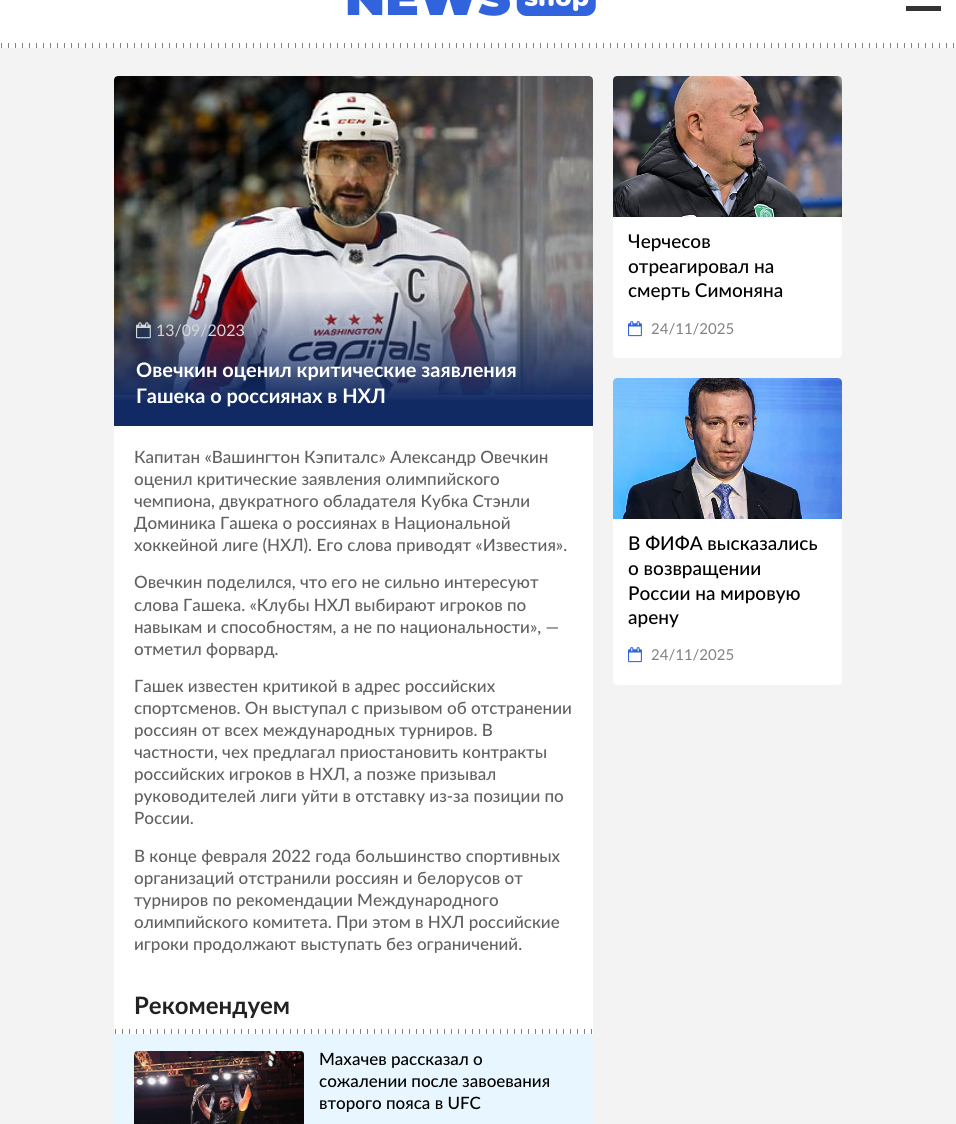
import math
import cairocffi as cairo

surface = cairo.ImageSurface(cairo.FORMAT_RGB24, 956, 1124)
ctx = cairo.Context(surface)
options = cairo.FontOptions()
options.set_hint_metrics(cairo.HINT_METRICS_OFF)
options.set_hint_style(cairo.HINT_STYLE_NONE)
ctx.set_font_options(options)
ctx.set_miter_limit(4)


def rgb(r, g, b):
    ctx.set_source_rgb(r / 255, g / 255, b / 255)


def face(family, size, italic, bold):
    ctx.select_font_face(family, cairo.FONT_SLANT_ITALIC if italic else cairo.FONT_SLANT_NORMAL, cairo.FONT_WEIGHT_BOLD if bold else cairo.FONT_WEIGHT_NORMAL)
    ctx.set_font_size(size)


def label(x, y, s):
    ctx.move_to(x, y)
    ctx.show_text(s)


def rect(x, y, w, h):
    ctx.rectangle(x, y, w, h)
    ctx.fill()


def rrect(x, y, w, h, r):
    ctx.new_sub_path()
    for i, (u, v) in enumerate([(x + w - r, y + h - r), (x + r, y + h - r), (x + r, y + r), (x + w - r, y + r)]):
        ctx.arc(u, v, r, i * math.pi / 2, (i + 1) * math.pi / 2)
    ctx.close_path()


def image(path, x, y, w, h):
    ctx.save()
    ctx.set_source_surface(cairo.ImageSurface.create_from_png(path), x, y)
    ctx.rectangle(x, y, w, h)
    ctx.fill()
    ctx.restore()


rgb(243, 243, 243)
ctx.paint()
rgb(255, 255, 255)
rect(0, 0, 956, 43)
image('image0.png', 347, 0, 249, 16)
rgb(51, 51, 51)
rect(906, 6, 35, 5)
image('image1.png', 0, 43, 956, 5)
rgb(255, 255, 255)
rrect(114, 76, 479, 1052, 4)
ctx.fill()
image('image2.png', 114, 76, 479, 319)
gradient = cairo.LinearGradient(354, 290, 354, 426)
gradient.add_color_stop_rgba(0, 0.067, 0.165, 0.388, 0)
gradient.add_color_stop_rgba(0.57, 0.067, 0.165, 0.388, 0.7)
gradient.add_color_stop_rgba(0.82, 0.067, 0.165, 0.388, 1)
ctx.set_source(gradient)
rect(114, 292, 479, 134)
image('image3.png', 136, 322, 15, 17)
face('Lato', 16, 0, 0)
rgb(214, 214, 214)
label(156, 336, '13/09/2023')
face('Lato', 20, 0, 1)
rgb(255, 255, 255)
label(136, 377, 'Овечкин оценил критические заявления')
label(136, 403, 'Гашека о россиянах в НХЛ')
face('Lato Medium', 17, 0, 0)
rgb(97, 97, 97)
label(134, 463, 'Капитан «Вашингтон Кэпиталс» Александр Овечкин')
label(134, 485, 'оценил критические заявления олимпийского')
label(134, 507, 'чемпиона, двукратного обладателя Кубка Стэнли')
label(134, 529, 'Доминика Гашека о россиянах в Национальной')
label(134, 551, 'хоккейной лиге (НХЛ). Его слова приводят «Известия».')
label(134, 588, 'Овечкин поделился, что его не сильно интересуют')
label(134, 611, 'слова Гашека. «Клубы НХЛ выбирают игроков по')
label(134, 633, 'навыкам и способностям, а не по национальности», —')
label(134, 655, 'отметил форвард.')
label(134, 692, 'Гашек известен критикой в адрес российских')
label(134, 714, 'спортсменов. Он выступал с призывом об отстранении')
label(134, 736, 'россиян от всех международных турниров. В')
label(134, 758, 'частности, чех предлагал приостановить контракты')
label(134, 780, 'российских игроков в НХЛ, а позже призывал')
label(134, 802, 'руководителей лиги уйти в отставку из-за позиции по')
label(134, 824, 'России.')
label(134, 862, 'В конце февраля 2022 года большинство спортивных')
label(134, 884, 'организаций отстранили россиян и белорусов от')
label(134, 906, 'турниров по рекомендации Международного')
label(134, 928, 'олимпийского комитета. При этом в НХЛ российские')
label(134, 950, 'игроки продолжают выступать без ограничений.')
face('Lato', 24, 0, 1)
rgb(34, 34, 34)
label(134, 1014, 'Рекомендуем')
rgb(232, 247, 255)
rect(114, 1034, 479, 90)
image('image4.png', 114, 1029, 479, 5)
image('image5.png', 134, 1051, 170, 73)
face('Lato Medium', 17, 0, 0)
rgb(0, 0, 0)
label(319, 1065, 'Махачев рассказал о')
label(319, 1087, 'сожалении после завоевания')
label(319, 1109, 'второго пояса в UFC')
rgb(255, 255, 255)
rrect(613, 76, 229, 282, 4)
ctx.fill()
image('image6.png', 613, 76, 229, 141)
face('Lato Medium', 19, 0, 0)
rgb(0, 0, 0)
label(628, 248, 'Черчесов')
label(628, 273, 'отреагировал на')
label(628, 297, 'смерть Симоняна')
image('image7.png', 628, 321, 14, 16)
face('Lato', 15, 0, 0)
rgb(129, 129, 129)
label(651, 334, '24/11/2025')
rgb(255, 255, 255)
rrect(613, 378, 229, 307, 4)
ctx.fill()
image('image8.png', 613, 378, 229, 141)
face('Lato Medium', 19, 0, 0)
rgb(0, 0, 0)
label(628, 550, 'В ФИФА высказались')
label(628, 575, 'о возвращении')
label(628, 600, 'России на мировую')
label(628, 624, 'арену')
image('image7.png', 628, 647, 14, 16)
face('Lato', 15, 0, 0)
rgb(129, 129, 129)
label(651, 660, '24/11/2025')
surface.write_to_png('render.png')
